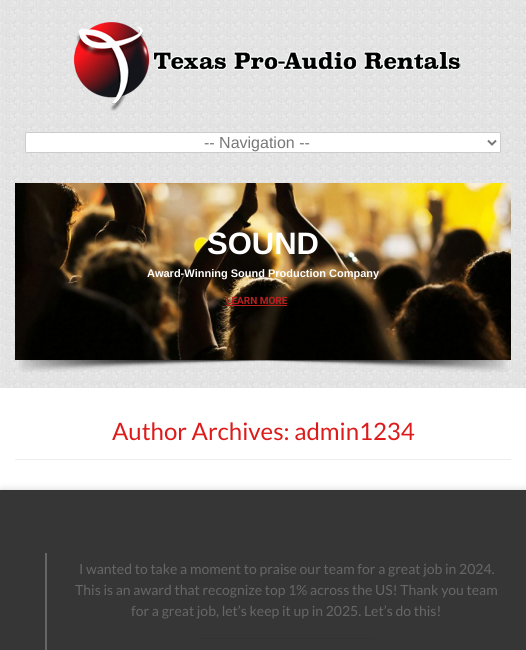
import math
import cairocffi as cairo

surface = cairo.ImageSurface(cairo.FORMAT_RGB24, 526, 650)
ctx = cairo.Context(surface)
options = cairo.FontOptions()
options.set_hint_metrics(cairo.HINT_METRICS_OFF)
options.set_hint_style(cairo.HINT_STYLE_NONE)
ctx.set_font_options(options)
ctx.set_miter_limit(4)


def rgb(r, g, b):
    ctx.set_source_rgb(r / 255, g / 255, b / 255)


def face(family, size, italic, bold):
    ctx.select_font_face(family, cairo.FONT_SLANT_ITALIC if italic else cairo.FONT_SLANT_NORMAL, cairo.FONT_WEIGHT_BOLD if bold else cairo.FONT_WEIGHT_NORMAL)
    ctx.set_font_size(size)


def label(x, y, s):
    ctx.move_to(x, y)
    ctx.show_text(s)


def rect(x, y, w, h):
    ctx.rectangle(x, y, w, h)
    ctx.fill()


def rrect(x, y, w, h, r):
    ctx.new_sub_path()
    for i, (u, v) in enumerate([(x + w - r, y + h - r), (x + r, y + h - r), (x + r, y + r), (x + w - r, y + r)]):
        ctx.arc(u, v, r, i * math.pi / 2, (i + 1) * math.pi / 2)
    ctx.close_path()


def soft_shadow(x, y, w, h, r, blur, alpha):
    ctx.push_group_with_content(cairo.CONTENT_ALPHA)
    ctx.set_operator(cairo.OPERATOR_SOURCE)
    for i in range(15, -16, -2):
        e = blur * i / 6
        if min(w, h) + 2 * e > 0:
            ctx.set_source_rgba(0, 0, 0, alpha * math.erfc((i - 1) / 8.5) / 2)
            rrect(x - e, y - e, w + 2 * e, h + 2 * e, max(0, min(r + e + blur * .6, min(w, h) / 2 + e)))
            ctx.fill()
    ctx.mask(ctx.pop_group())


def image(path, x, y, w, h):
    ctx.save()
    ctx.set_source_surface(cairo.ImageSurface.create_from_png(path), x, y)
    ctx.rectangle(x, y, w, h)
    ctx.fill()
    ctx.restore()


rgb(255, 255, 255)
ctx.paint()
image('image0.png', 0, 0, 526, 183)
image('image1.png', 74, 22, 388, 89)
rgb(255, 255, 255)
rrect(25.5, 132.5, 475, 20, 1.5)
ctx.fill_preserve()
rgb(204, 204, 204)
ctx.set_line_width(1)
ctx.stroke()
ctx.new_path()
ctx.move_to(488, 140.5)
ctx.line_to(492, 144.5)
ctx.line_to(496, 140.5)
rgb(119, 119, 119)
ctx.set_line_width(2)
ctx.stroke()
face('Liberation Sans', 16, 0, 0)
label(204, 148, '-- Navigation --')
image('image2.png', 0, 183, 526, 205)
image('image3.png', 15, 183, 496, 177)
face('Liberation Sans', 31, 0, 1)
rgb(255, 255, 255)
label(207, 254, 'SOUND')
face('Liberation Sans', 11, 0, 1)
label(147, 277, 'Award-Winning Sound Production Company')
face('Roboto', 10, 0, 1)
rgb(186, 31, 31)
label(226, 304, 'LEARN MORE')
rect(226, 305, 61, 1)
image('image4.png', 18, 360, 490, 13)
rgb(238, 238, 238)
rect(15, 459, 496, 1)
face('Lato', 24, 0, 0)
rgb(221, 27, 27)
label(112, 440, 'Author Archives: admin1234')
rgb(199, 199, 199)
soft_shadow(1, 491, 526, 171, 0, 4, 1)
rgb(54, 54, 54)
rect(0, 490, 526, 160)
rgb(102, 102, 102)
rect(45, 553, 2, 97)
face('Lato', 14, 0, 0)
label(79, 574, 'I wanted to take a moment to praise our team for a great job in 2024.')
label(75, 595, 'This is an award that recognize top 1% across the US! Thank you team')
label(131, 616, 'for a great job, let’s keep it up in 2025. Let’s do this!')
rgb(51, 51, 51)
rect(200, 638, 173, 1)
surface.write_to_png('render.png')
